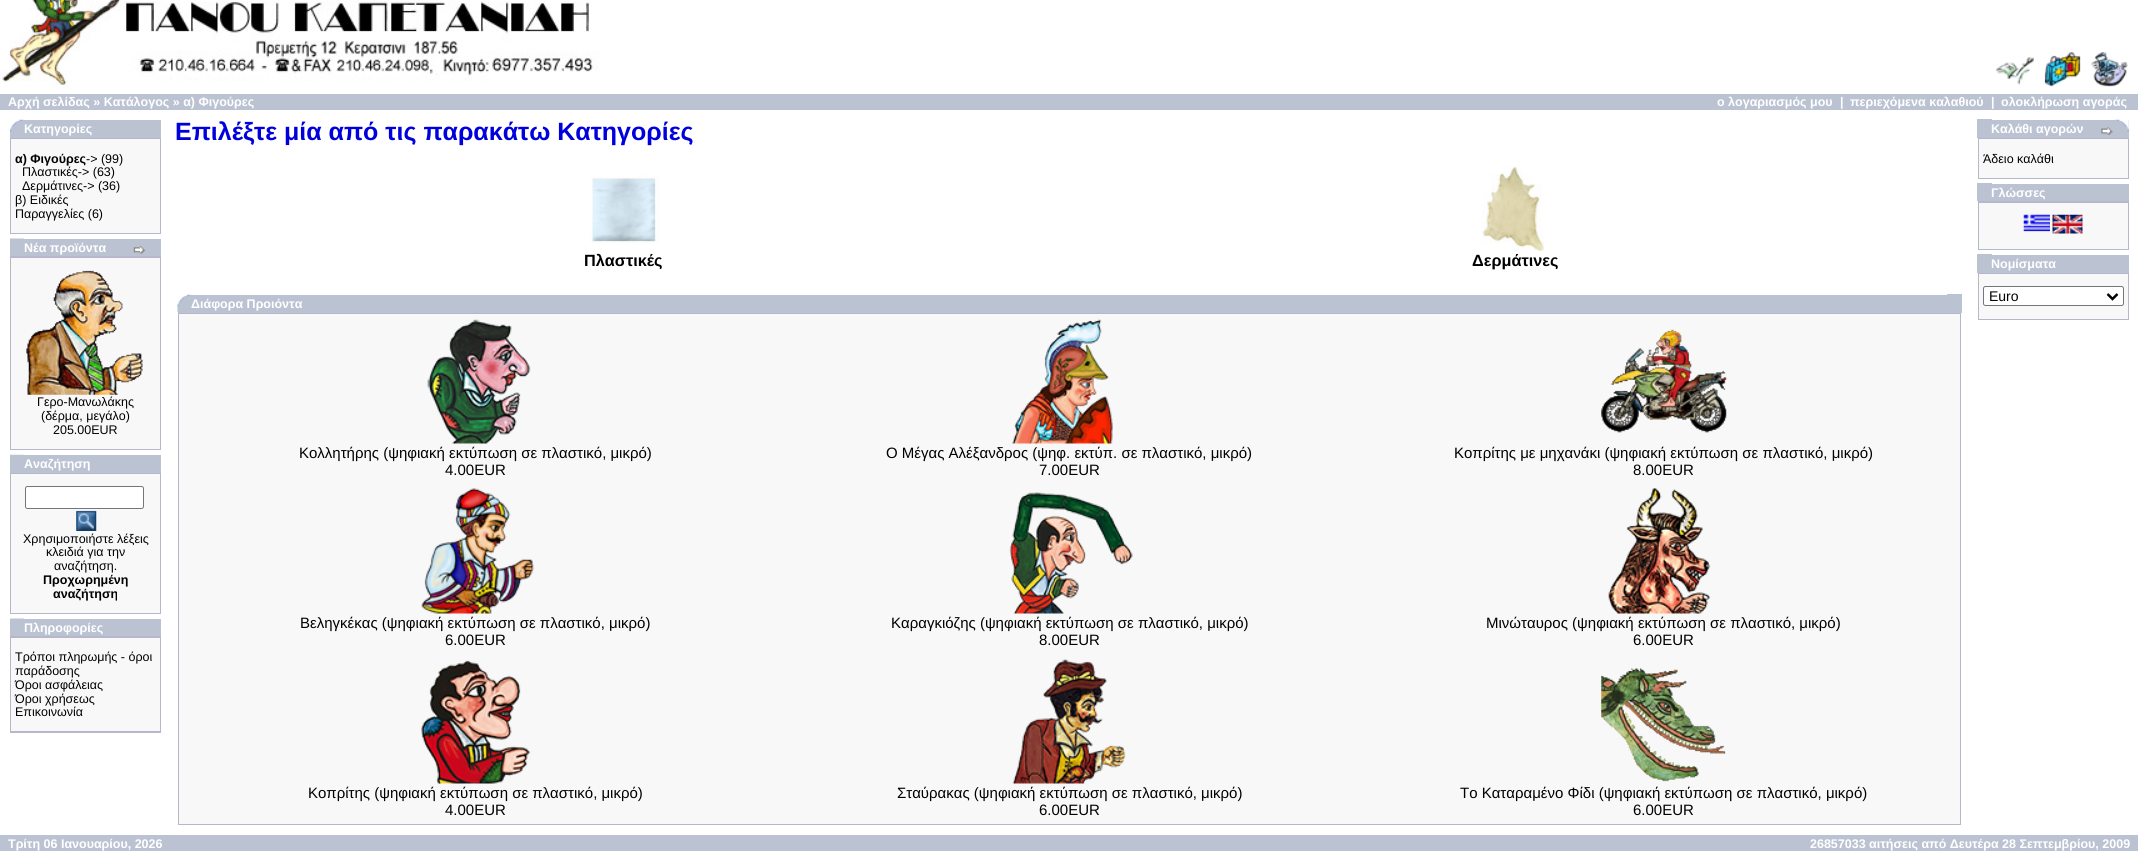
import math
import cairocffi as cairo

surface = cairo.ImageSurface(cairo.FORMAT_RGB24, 2138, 855)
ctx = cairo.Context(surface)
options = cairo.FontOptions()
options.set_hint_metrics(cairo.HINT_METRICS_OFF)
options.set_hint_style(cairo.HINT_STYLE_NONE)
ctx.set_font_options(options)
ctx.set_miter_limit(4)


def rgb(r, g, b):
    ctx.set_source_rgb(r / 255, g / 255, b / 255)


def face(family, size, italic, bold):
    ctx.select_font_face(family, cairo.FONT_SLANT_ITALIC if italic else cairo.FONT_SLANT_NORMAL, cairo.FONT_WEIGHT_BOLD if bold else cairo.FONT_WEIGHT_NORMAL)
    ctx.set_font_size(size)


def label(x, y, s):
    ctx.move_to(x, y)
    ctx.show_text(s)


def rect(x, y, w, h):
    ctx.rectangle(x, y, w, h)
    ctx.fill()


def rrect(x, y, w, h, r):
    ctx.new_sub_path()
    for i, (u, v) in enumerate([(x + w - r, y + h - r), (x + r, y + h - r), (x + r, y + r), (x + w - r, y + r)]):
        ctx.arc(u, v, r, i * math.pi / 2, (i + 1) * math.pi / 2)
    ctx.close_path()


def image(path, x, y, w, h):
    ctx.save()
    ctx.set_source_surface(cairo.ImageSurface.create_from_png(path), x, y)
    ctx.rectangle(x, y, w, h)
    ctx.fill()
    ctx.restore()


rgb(255, 255, 255)
ctx.paint()
image('image0.png', 1, 0, 599, 89)
image('image1.png', 1996, 57, 38, 28)
image('image2.png', 2044, 52, 37, 35)
image('image3.png', 2091, 52, 37, 35)
rgb(187, 195, 211)
rect(0, 94, 2138, 16)
face('Liberation Sans', 12.5, 0, 1)
rgb(255, 255, 255)
label(8, 106, 'Αρχή σελίδας » Κατάλογος » α) Φιγούρες')
label(1717, 106, 'ο λογαριασμός μου')
label(1840, 106, '|')
label(1850, 106, 'περιεχόμενα καλαθιού')
label(1991, 106, '|')
label(2001, 106, 'ολοκλήρωση αγοράς')
rgb(187, 195, 211)
rect(10, 120, 151, 18)
image('image4.png', 10, 119, 14, 13)
rgb(255, 255, 255)
label(24, 133, 'Κατηγορίες')
rgb(182, 183, 203)
rect(10, 138, 151, 96)
rgb(248, 248, 249)
rect(11, 139, 149, 94)
rgb(0, 0, 0)
label(15, 163, 'α) Φιγούρες')
face('Liberation Sans', 12.5, 0, 0)
label(86, 163, '-> (99)')
label(22, 176, 'Πλαστικές-> (63)')
label(22, 190, 'Δερμάτινες-> (36)')
label(15, 204, 'β) Ειδικές')
label(15, 218, 'Παραγγελίες (6)')
rgb(187, 195, 211)
rect(10, 239, 151, 17)
image('image5.png', 10, 238, 14, 1)
face('Liberation Sans', 12.5, 0, 1)
rgb(255, 255, 255)
label(24, 252, 'Νέα προϊόντα')
image('image6.png', 133, 246, 13, 8)
rgb(182, 183, 203)
rect(10, 256, 151, 194)
rgb(248, 248, 249)
rect(11, 258, 149, 191)
image('image7.png', 26, 270, 117, 125)
face('Liberation Sans', 12.5, 0, 0)
rgb(0, 0, 0)
label(37, 406, 'Γερο-Μανωλάκης')
label(41, 420, '(δέρμα, μεγάλο)')
label(53, 434, '205.00EUR')
rgb(187, 195, 211)
rect(10, 455, 151, 18)
image('image8.png', 10, 454, 14, 1)
face('Liberation Sans', 12.5, 0, 1)
rgb(255, 255, 255)
label(24, 468, 'Αναζήτηση')
rgb(182, 183, 203)
rect(10, 473, 151, 141)
rgb(248, 248, 249)
rect(11, 474, 149, 139)
rgb(255, 255, 255)
rrect(25.5, 486.5, 118, 22, 2)
ctx.fill_preserve()
rgb(118, 118, 118)
ctx.set_line_width(1)
ctx.stroke()
image('image9.png', 76, 510, 21, 21)
face('Liberation Sans', 12.5, 0, 0)
rgb(0, 0, 0)
label(23, 543, 'Χρησιμοποιήστε λέξεις')
label(46, 556, 'κλειδιά για την')
label(54, 570, 'αναζήτηση.')
face('Liberation Sans', 12.5, 0, 1)
label(43, 584, 'Προχωρημένη')
label(53, 598, 'αναζήτηση')
rgb(187, 195, 211)
rect(10, 619, 151, 17)
image('image5.png', 10, 618, 14, 1)
rgb(255, 255, 255)
label(24, 632, 'Πληροφορίες')
rgb(182, 183, 203)
rect(10, 636, 151, 97)
rgb(248, 248, 249)
rect(11, 638, 149, 93)
face('Liberation Sans', 12.5, 0, 0)
rgb(0, 0, 0)
label(15, 661, 'Τρόποι πληρωμής - όροι')
label(15, 675, 'παράδοσης')
label(15, 689, 'Όροι ασφάλειας')
label(15, 703, 'Όροι χρήσεως')
label(15, 716, 'Επικοινωνία')
face('Liberation Sans', 25, 0, 1)
rgb(0, 0, 221)
label(175, 140, 'Επιλέξτε μία από τις παρακάτω Κατηγορίες')
image('image10.png', 590, 175, 70, 68)
face('Liberation Sans', 16.25, 0, 1)
rgb(0, 0, 0)
label(584, 266, 'Πλαστικές')
image('image11.png', 1481, 166, 63, 85)
label(1472, 266, 'Δερμάτινες')
rgb(187, 195, 211)
rect(178, 312, 13, 1)
rect(191, 295, 1756, 18)
image('image12.png', 177, 294, 15, 19)
face('Liberation Sans', 12.5, 0, 1)
rgb(255, 255, 255)
label(191, 308, 'Διάφορα Προιόντα')
rgb(187, 195, 211)
rect(1947, 294, 15, 19)
rgb(182, 183, 203)
rect(178, 313, 1783, 512)
rgb(248, 248, 249)
rect(179, 314, 1781, 510)
image('image13.png', 427, 319, 104, 125)
face('Liberation Sans', 15, 0, 0)
rgb(0, 0, 0)
label(299, 458, 'Κολλητήρης (ψηφιακή εκτύπωση σε πλαστικό, μικρό)')
label(445, 475, '4.00EUR')
image('image14.png', 1012, 319, 101, 125)
label(886, 458, 'Ο Μέγας Αλέξανδρος (ψηφ. εκτύπ. σε πλαστικό, μικρό)')
label(1039, 475, '7.00EUR')
image('image15.png', 1601, 329, 126, 104)
label(1454, 458, 'Κοπρίτης με μηχανάκι (ψηφιακή εκτύπωση σε πλαστικό, μικρό)')
label(1633, 475, '8.00EUR')
image('image16.png', 421, 488, 114, 126)
label(300, 628, 'Βεληγκέκας (ψηφιακή εκτύπωση σε πλαστικό, μικρό)')
label(445, 645, '6.00EUR')
image('image17.png', 1009, 492, 124, 122)
label(891, 628, 'Καραγκιόζης (ψηφιακή εκτύπωση σε πλαστικό, μικρό)')
label(1039, 645, '8.00EUR')
image('image18.png', 1607, 488, 104, 126)
label(1486, 628, 'Μινώταυρος (ψηφιακή εκτύπωση σε πλαστικό, μικρό)')
label(1633, 645, '6.00EUR')
image('image19.png', 421, 660, 110, 124)
label(308, 798, 'Κοπρίτης (ψηφιακή εκτύπωση σε πλαστικό, μικρό)')
label(445, 815, '4.00EUR')
image('image20.png', 1012, 659, 114, 125)
label(897, 798, 'Σταύρακας (ψηφιακή εκτύπωση σε πλαστικό, μικρό)')
label(1039, 815, '6.00EUR')
image('image21.png', 1601, 668, 125, 114)
label(1460, 798, 'Το Καταραμένο Φίδι (ψηφιακή εκτύπωση σε πλαστικό, μικρό)')
label(1633, 815, '6.00EUR')
rgb(187, 195, 211)
rect(1977, 119, 15, 19)
rect(1992, 120, 137, 18)
face('Liberation Sans', 12.5, 0, 1)
rgb(255, 255, 255)
label(1991, 133, 'Καλάθι αγορών')
image('image22.png', 2101, 127, 12, 8)
image('image23.png', 2115, 119, 14, 13)
rgb(182, 183, 203)
rect(1978, 138, 151, 41)
rgb(248, 248, 249)
rect(1979, 139, 149, 39)
face('Liberation Sans', 12.5, 0, 0)
rgb(0, 0, 0)
label(1983, 163, 'Άδειο καλάθι')
rgb(187, 195, 211)
rect(1977, 183, 15, 18)
rect(1992, 184, 137, 17)
face('Liberation Sans', 12.5, 0, 1)
rgb(255, 255, 255)
label(1991, 197, 'Γλώσσες')
rgb(182, 183, 203)
rect(1978, 201, 151, 49)
rgb(248, 248, 249)
rect(1979, 203, 149, 46)
image('image24.png', 2023, 214, 27, 18)
image('image25.png', 2052, 214, 31, 20)
rgb(187, 195, 211)
rect(1977, 254, 15, 19)
rect(1992, 255, 137, 18)
rgb(255, 255, 255)
label(1991, 268, 'Νομίσματα')
rgb(182, 183, 203)
rect(1978, 273, 151, 47)
rgb(248, 248, 249)
rect(1979, 274, 149, 45)
rgb(255, 255, 255)
rrect(1983.5, 286.5, 140, 19, 2)
ctx.fill_preserve()
rgb(118, 118, 118)
ctx.stroke()
ctx.new_path()
ctx.move_to(2107.5, 294)
ctx.line_to(2112.5, 299)
ctx.line_to(2117.5, 294)
rgb(0, 0, 0)
ctx.set_line_width(2.5)
ctx.stroke()
face('Liberation Sans', 14, 0, 0)
label(1989, 301, 'Euro')
rgb(187, 195, 211)
rect(0, 835, 2138, 16)
face('Liberation Sans', 12.5, 0, 1)
rgb(255, 255, 255)
label(8, 848, 'Τρίτη 06 Ιανουαρίου, 2026')
label(1810, 848, '26857033 αιτήσεις από Δευτέρα 28 Σεπτεμβρίου, 2009')
surface.write_to_png('render.png')
